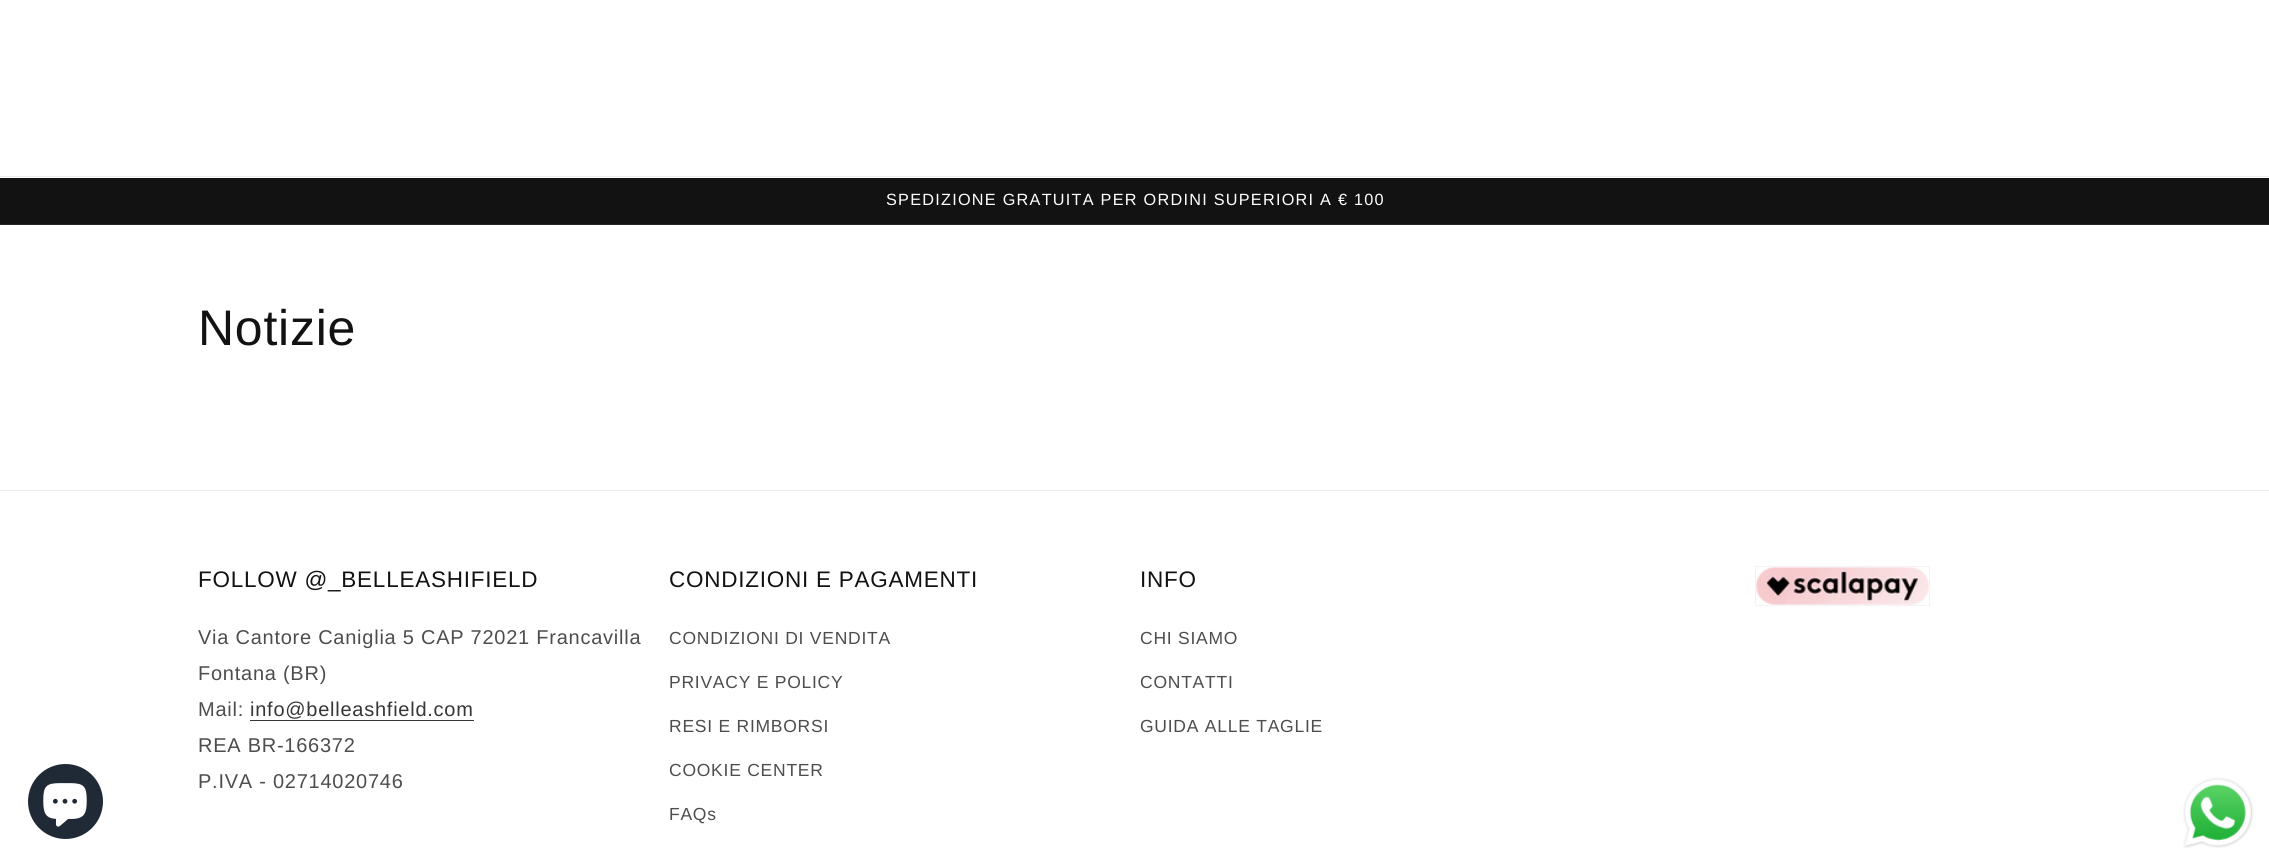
import math
import cairocffi as cairo

surface = cairo.ImageSurface(cairo.FORMAT_RGB24, 2269, 864)
ctx = cairo.Context(surface)
options = cairo.FontOptions()
options.set_hint_metrics(cairo.HINT_METRICS_OFF)
options.set_hint_style(cairo.HINT_STYLE_NONE)
ctx.set_font_options(options)
ctx.set_miter_limit(4)


def rgb(r, g, b):
    ctx.set_source_rgb(r / 255, g / 255, b / 255)


def face(family, size, italic, bold):
    ctx.select_font_face(family, cairo.FONT_SLANT_ITALIC if italic else cairo.FONT_SLANT_NORMAL, cairo.FONT_WEIGHT_BOLD if bold else cairo.FONT_WEIGHT_NORMAL)
    ctx.set_font_size(size)


def tracked(x, y, s, letter, word):
    ctx.move_to(x, y)
    for ch in s:
        ctx.show_text(ch)
        ctx.rel_move_to(letter + word * (ch == ' '), 0)


def rect(x, y, w, h):
    ctx.rectangle(x, y, w, h)
    ctx.fill()


def image(path, x, y, w, h):
    ctx.save()
    ctx.set_source_surface(cairo.ImageSurface.create_from_png(path), x, y)
    ctx.rectangle(x, y, w, h)
    ctx.fill()
    ctx.restore()


rgb(255, 255, 255)
ctx.paint()
rgb(236, 236, 236)
rect(0, 176, 2269, 1)
rgb(18, 18, 18)
rect(0, 178, 2269, 46)
rgb(37, 37, 37)
rect(0, 224, 2269, 1)
face('Liberation Sans', 16.25, 0, 0)
rgb(255, 255, 255)
tracked(886, 205, 'SPEDIZIONE GRATUITA PER ORDINI SUPERIORI A € 100', 1.25, 0)
face('Liberation Sans', 50, 0, 0)
rgb(18, 18, 18)
tracked(198, 345, 'Notizie', 0.75, 0)
rgb(32, 42, 54)
ctx.new_path()
ctx.arc(65.5, 801.5, 37.5, 0, 2 * math.pi)
ctx.fill()
image('image0.png', 43, 783, 44, 44)
rgb(236, 236, 236)
rect(0, 490, 2269, 1)
face('Liberation Sans', 22.5, 0, 0)
rgb(18, 18, 18)
tracked(198, 587, 'FOLLOW @_BELLEASHIFIELD', 0.75, 0)
face('Liberation Sans', 20, 0, 0)
rgb(77, 77, 77)
tracked(198, 644, 'Via Cantore Caniglia 5 CAP 72021 Francavilla', 0.75, 0)
tracked(198, 680, 'Fontana (BR)', 0.75, 0)
tracked(198, 716, 'Mail:', 0.75, 0)
rgb(54, 54, 54)
tracked(250, 716, 'info@belleashfield.com', 0.75, 0)
rect(250, 720, 224, 1)
rgb(77, 77, 77)
tracked(198, 752, 'REA BR-166372', 0.75, 0)
tracked(198, 788, 'P.IVA - 02714020746', 0.75, 0)
face('Liberation Sans', 22.5, 0, 0)
rgb(18, 18, 18)
tracked(669, 587, 'CONDIZIONI E PAGAMENTI', 0.75, 0)
face('Liberation Sans', 17.5, 0, 0)
rgb(77, 77, 77)
tracked(669, 644, 'CONDIZIONI DI VENDITA', 0.75, 0)
tracked(669, 688, 'PRIVACY E POLICY', 0.75, 0)
tracked(669, 732, 'RESI E RIMBORSI', 0.75, 0)
tracked(669, 776, 'COOKIE CENTER', 0.75, 0)
tracked(669, 820, 'FAQs', 0.75, 0)
face('Liberation Sans', 22.5, 0, 0)
rgb(18, 18, 18)
tracked(1140, 587, 'INFO', 0.75, 0)
face('Liberation Sans', 17.5, 0, 0)
rgb(77, 77, 77)
tracked(1140, 644, 'CHI SIAMO', 0.75, 0)
tracked(1140, 688, 'CONTATTI', 0.75, 0)
tracked(1140, 732, 'GUIDA ALLE TAGLIE', 0.75, 0)
ctx.rectangle(1755.5, 566.5, 174, 39)
rgb(243, 243, 243)
ctx.set_line_width(1)
ctx.stroke()
image('image1.png', 1756, 567, 173, 38)
image('image2.png', 2183, 777, 71, 71)
surface.write_to_png('render.png')
